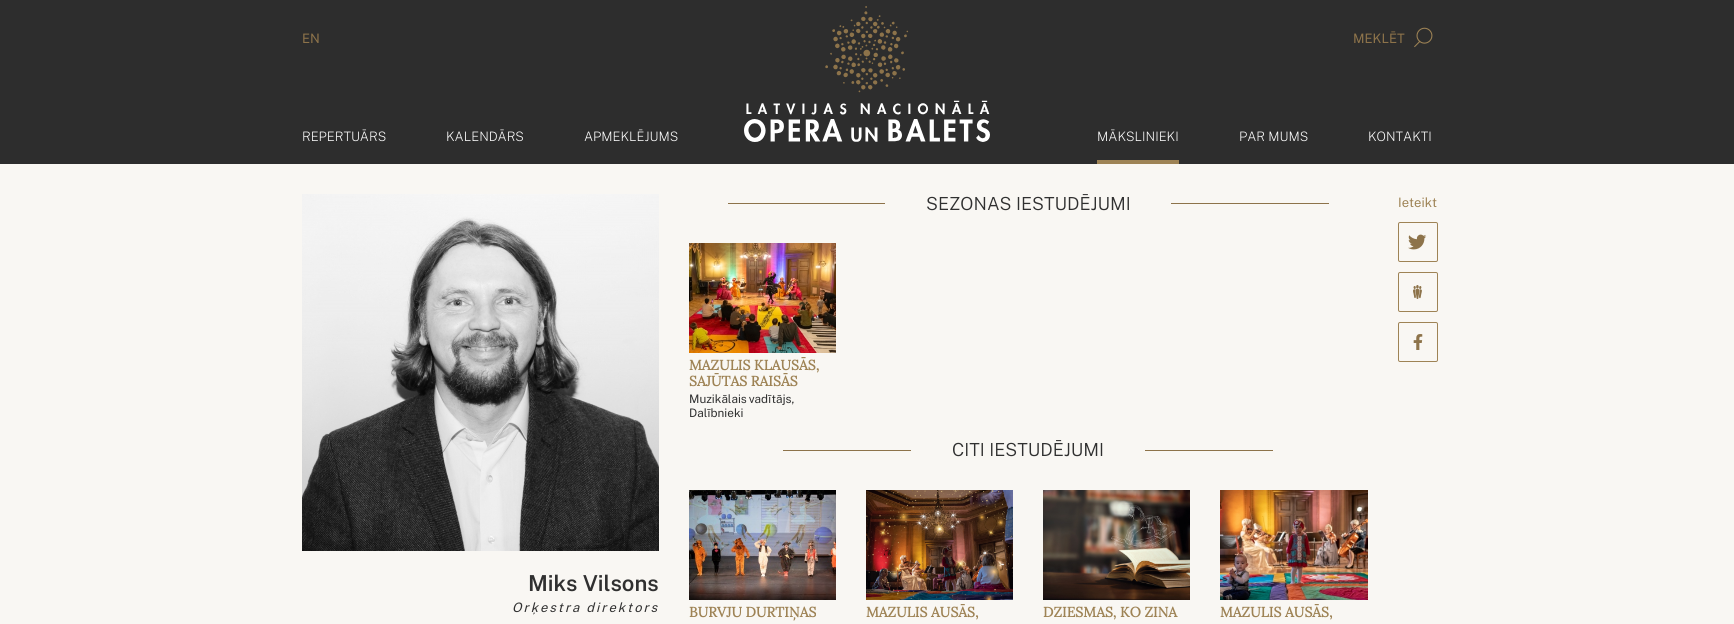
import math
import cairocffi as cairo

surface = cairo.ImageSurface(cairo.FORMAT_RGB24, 1734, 624)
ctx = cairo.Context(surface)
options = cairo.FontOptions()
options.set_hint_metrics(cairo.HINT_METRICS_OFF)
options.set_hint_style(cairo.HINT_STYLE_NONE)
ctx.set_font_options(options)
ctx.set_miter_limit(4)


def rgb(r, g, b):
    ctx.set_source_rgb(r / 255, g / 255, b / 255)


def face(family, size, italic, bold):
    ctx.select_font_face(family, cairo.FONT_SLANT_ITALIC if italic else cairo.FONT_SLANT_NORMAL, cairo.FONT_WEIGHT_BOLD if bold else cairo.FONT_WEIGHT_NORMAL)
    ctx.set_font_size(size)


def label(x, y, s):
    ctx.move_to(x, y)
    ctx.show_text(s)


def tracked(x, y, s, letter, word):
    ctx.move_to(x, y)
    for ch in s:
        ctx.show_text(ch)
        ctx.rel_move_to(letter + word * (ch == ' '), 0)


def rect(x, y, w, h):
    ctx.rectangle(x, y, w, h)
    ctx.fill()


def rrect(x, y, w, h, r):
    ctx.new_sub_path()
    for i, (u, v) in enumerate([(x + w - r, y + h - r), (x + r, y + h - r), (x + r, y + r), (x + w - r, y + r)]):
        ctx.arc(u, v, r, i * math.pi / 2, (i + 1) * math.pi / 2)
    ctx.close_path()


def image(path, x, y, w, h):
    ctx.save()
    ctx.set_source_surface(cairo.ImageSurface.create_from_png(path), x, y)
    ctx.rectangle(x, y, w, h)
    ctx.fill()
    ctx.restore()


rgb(249, 247, 243)
ctx.paint()
rgb(45, 45, 45)
rect(0, 0, 1734, 164)
face('Public Sans', 13, 0, 0)
rgb(141, 115, 74)
label(302, 43, 'EN')
label(1353, 43, 'MEKLĒT')
image('image0.png', 1414, 27, 19, 21)
image('image1.png', 744, 6, 246, 136)
face('Public Sans ExtraLight', 13, 0, 0)
rgb(255, 255, 255)
label(302, 141, 'REPERTUĀRS')
label(446, 141, 'KALENDĀRS')
label(584, 141, 'APMEKLĒJUMS')
rgb(158, 131, 85)
rect(1097, 160, 82, 4)
rgb(255, 255, 255)
label(1097, 141, 'MĀKSLINIEKI')
label(1239, 141, 'PAR MUMS')
label(1368, 141, 'KONTAKTI')
image('image2.png', 302, 194, 357, 357)
face('Public Sans SemiBold', 22, 0, 0)
rgb(48, 48, 48)
label(528, 591, 'Miks Vilsons')
face('Public Sans', 13, 1, 0)
tracked(512, 612, 'Orķestra direktors', 2, 0)
rgb(141, 115, 74)
rect(728, 203, 157, 1)
face('Public Sans Light', 18, 0, 0)
rgb(48, 48, 48)
label(926, 210, 'SEZONAS IESTUDĒJUMI')
rgb(141, 115, 74)
rect(1171, 203, 158, 1)
image('image3.png', 689, 243, 147, 110)
face('Lora', 14, 0, 1)
rgb(158, 131, 85)
label(689, 370, 'MAZULIS KLAUSĀS,')
label(689, 386, 'SAJŪTAS RAISĀS')
face('Public Sans', 11.75, 0, 0)
rgb(48, 48, 48)
tracked(689, 403, 'Muzikālais vadītājs,', 0, -1)
label(689, 417, 'Dalībnieki')
rgb(141, 115, 74)
rect(783, 450, 128, 1)
face('Public Sans Light', 18, 0, 0)
rgb(48, 48, 48)
label(952, 456, 'CITI IESTUDĒJUMI')
rgb(141, 115, 74)
rect(1145, 450, 128, 1)
image('image4.png', 689, 490, 147, 110)
face('Lora', 14, 0, 1)
rgb(158, 131, 85)
label(689, 617, 'BURVJU DURTIŅAS')
image('image5.png', 866, 490, 147, 110)
label(866, 617, 'MAZULIS AUSĀS,')
image('image6.png', 1043, 490, 147, 110)
label(1043, 617, 'DZIESMAS, KO ZINA')
image('image7.png', 1220, 490, 148, 110)
label(1220, 617, 'MAZULIS AUSĀS,')
face('Public Sans', 13, 0, 0)
label(1398, 207, 'Ieteikt')
rrect(1398.5, 222.5, 39, 39, 1.5)
ctx.set_line_width(1)
ctx.stroke()
image('image8.png', 1408, 234, 19, 16)
rrect(1398.5, 272.5, 39, 39, 1.5)
ctx.stroke()
image('image9.png', 1413, 285, 9, 14)
rrect(1398.5, 322.5, 39, 39, 1.5)
ctx.stroke()
image('image10.png', 1413, 334, 10, 16)
surface.write_to_png('render.png')
